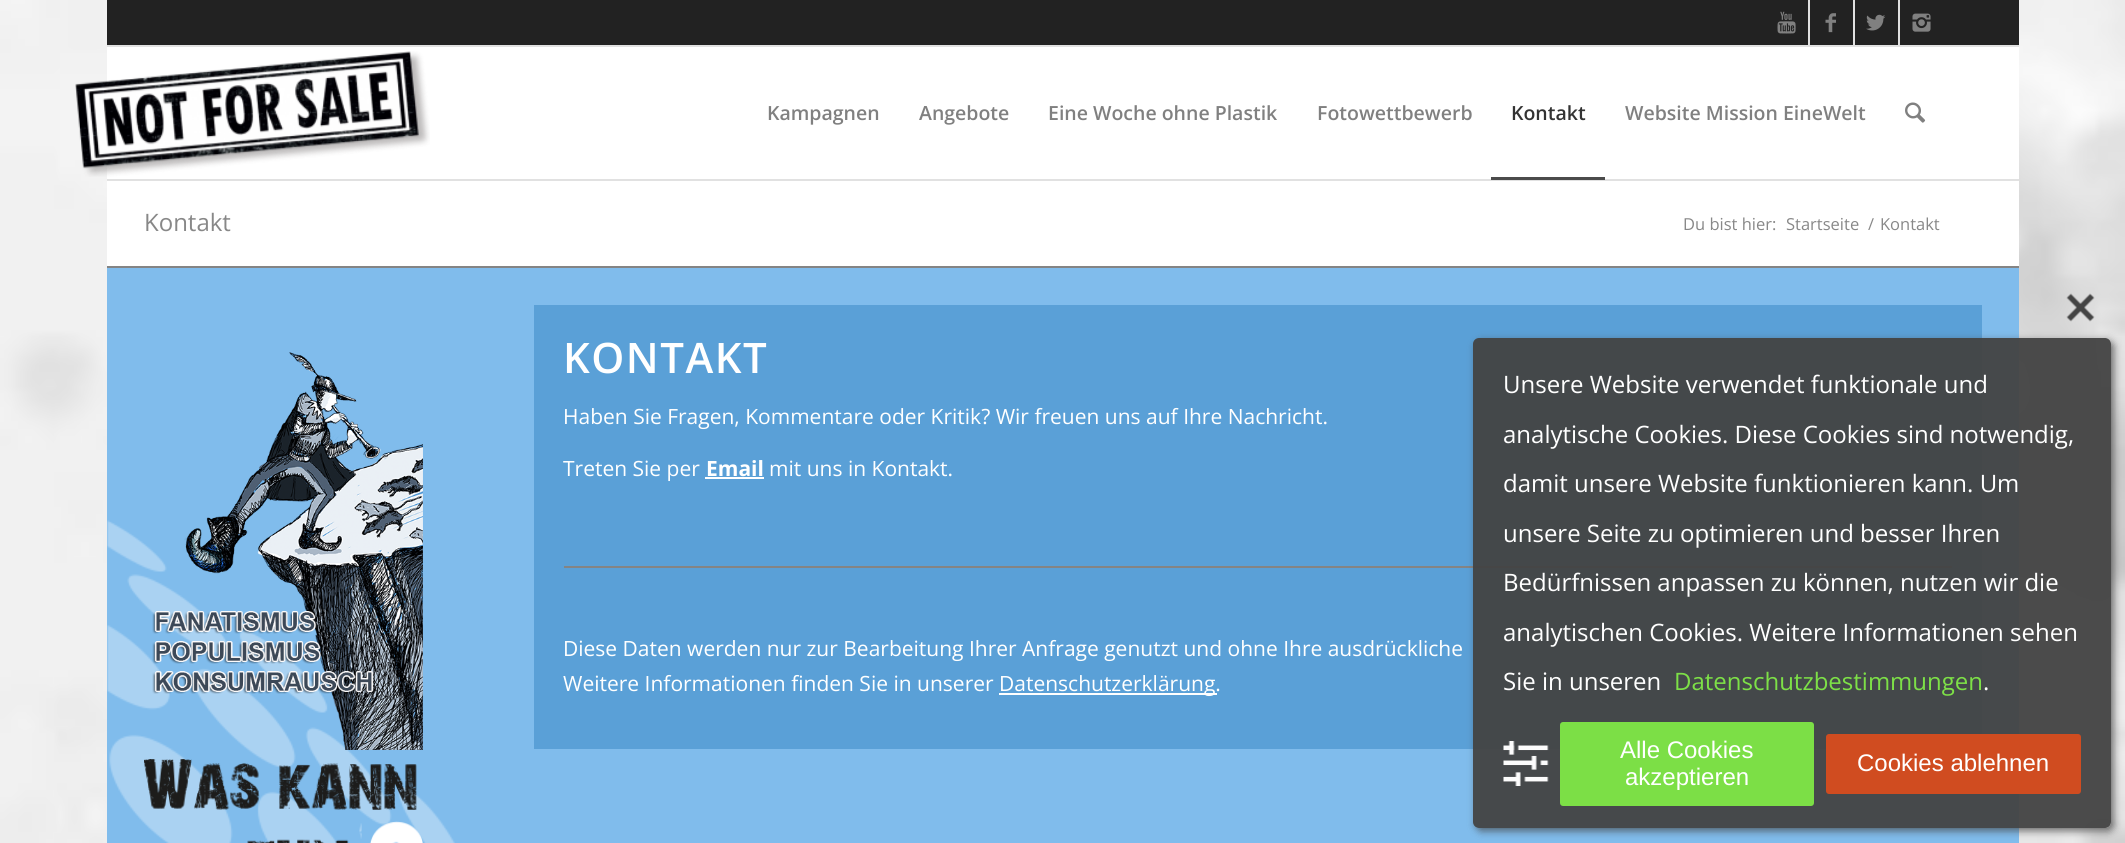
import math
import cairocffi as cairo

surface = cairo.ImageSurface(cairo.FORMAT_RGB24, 2125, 843)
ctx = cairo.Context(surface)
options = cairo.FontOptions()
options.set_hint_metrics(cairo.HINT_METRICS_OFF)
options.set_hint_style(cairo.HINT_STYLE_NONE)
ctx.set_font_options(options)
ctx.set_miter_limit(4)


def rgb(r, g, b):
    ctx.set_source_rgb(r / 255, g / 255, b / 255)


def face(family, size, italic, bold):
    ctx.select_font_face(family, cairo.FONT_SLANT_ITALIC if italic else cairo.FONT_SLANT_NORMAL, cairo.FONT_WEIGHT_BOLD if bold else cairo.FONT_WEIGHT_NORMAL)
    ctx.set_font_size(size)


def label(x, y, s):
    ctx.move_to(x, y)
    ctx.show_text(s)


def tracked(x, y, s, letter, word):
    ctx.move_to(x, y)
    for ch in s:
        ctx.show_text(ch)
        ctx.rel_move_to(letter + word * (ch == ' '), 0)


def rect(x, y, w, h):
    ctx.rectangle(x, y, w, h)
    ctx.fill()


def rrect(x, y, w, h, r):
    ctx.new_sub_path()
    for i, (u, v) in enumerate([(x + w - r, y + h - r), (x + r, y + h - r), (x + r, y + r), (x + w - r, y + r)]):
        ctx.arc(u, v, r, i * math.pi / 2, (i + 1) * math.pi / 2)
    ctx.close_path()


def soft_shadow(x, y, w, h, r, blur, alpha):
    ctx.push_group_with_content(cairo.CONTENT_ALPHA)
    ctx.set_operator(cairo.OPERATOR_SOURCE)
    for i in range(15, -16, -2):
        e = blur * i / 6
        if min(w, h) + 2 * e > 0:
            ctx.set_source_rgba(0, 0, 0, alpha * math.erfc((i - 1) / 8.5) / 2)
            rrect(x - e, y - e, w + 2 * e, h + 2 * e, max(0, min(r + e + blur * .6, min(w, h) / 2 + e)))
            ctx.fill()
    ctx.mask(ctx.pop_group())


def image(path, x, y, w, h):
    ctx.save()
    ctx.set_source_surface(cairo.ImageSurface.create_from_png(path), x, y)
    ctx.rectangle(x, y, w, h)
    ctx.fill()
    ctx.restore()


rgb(255, 255, 255)
ctx.paint()
image('image0.png', 0, 0, 2125, 843)
rgb(34, 34, 34)
rect(107, 0, 1912, 45)
rgb(225, 225, 225)
rect(107, 45, 1912, 2)
rect(1808, 0, 2, 45)
image('image1.png', 1777, 11, 19, 23)
rect(1853, 0, 2, 45)
image('image2.png', 1825, 13, 11, 20)
rect(1898, 0, 2, 45)
image('image3.png', 1866, 14, 20, 17)
image('image4.png', 1912, 13, 19, 19)
rgb(255, 255, 255)
rect(107, 47, 1912, 219)
rgb(225, 225, 225)
rect(107, 179, 1912, 2)
image('image5.png', 75, 51, 355, 126)
face('Open Sans SemiBold', 19.5, 0, 0)
rgb(128, 128, 128)
label(767, 120, 'Kampagnen')
label(919, 120, 'Angebote')
label(1048, 120, 'Eine Woche ohne Plastik')
label(1317, 120, 'Fotowettbewerb')
rgb(51, 51, 51)
label(1511, 120, 'Kontakt')
rgb(75, 75, 75)
rect(1491, 177, 114, 3)
rgb(128, 128, 128)
label(1625, 120, 'Website Mission EineWelt')
image('image6.png', 1905, 102, 21, 21)
face('Open Sans', 24, 0, 0)
rgb(136, 136, 136)
label(144, 231, 'Kontakt')
face('Open Sans', 16.5, 0, 0)
label(1683, 230, 'Du bist hier:')
label(1786, 230, 'Startseite')
label(1868, 230, '/')
label(1880, 230, 'Kontakt')
rgb(128, 188, 236)
rect(107, 268, 1912, 575)
image('image7.png', 107, 520, 348, 323)
rgb(132, 132, 132)
rect(107, 266, 1912, 2)
image('image8.png', 152, 352, 271, 398)
image('image9.png', 144, 759, 279, 84)
rgb(90, 160, 215)
rect(534, 305, 1448, 444)
face('Open Sans SemiBold', 42, 0, 0)
rgb(255, 255, 255)
tracked(563, 373, 'KONTAKT', 1.5, 0)
face('Open Sans', 21, 0, 0)
label(563, 424, 'Haben Sie Fragen, Kommentare oder Kritik? Wir freuen uns auf Ihre Nachricht.')
label(563, 476, 'Treten Sie per')
face('Open Sans', 21, 0, 1)
label(706, 476, 'Email')
rect(705, 477, 59, 2)
face('Open Sans', 21, 0, 0)
label(769, 476, 'mit uns in Kontakt.')
rgb(132, 132, 132)
rect(564, 566, 1388, 2)
rgb(255, 255, 255)
label(563, 656, 'Diese Daten werden nur zur Bearbeitung Ihrer Anfrage genutzt und ohne Ihre ausdrückliche')
label(563, 691, 'Weitere Informationen finden Sie in unserer')
rect(999, 693, 218, 2)
label(999, 691, 'Datenschutzerklärung.')
ctx.save()
ctx.set_fill_rule(cairo.FILL_RULE_EVEN_ODD)
ctx.new_path()
ctx.move_to(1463, 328)
ctx.line_to(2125, 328)
ctx.line_to(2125, 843)
ctx.line_to(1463, 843)
ctx.close_path()
ctx.move_to(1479, 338)
ctx.line_to(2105, 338)
ctx.curve_to(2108.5, 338, 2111, 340.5, 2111, 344)
ctx.line_to(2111, 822)
ctx.curve_to(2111, 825.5, 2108.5, 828, 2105, 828)
ctx.line_to(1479, 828)
ctx.curve_to(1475.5, 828, 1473, 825.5, 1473, 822)
ctx.line_to(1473, 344)
ctx.curve_to(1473, 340.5, 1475.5, 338, 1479, 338)
ctx.close_path()
ctx.clip()
rgb(68, 68, 68)
soft_shadow(1476, 341, 638, 490, 6, 4, 0.75)
ctx.restore()
ctx.set_source_rgba(0.267, 0.267, 0.267, 0.95)
rrect(1473, 338, 638, 490, 6)
ctx.fill()
image('image10.png', 2066, 293, 29, 29)
face('Open Sans', 24, 0, 0)
rgb(255, 255, 255)
label(1503, 393, 'Unsere Website verwendet funktionale und')
label(1503, 443, 'analytische Cookies. Diese Cookies sind notwendig,')
label(1503, 492, 'damit unsere Website funktionieren kann. Um')
label(1503, 542, 'unsere Seite zu optimieren und besser Ihren')
label(1503, 591, 'Bedürfnissen anpassen zu können, nutzen wir die')
label(1503, 641, 'analytischen Cookies. Weitere Informationen sehen')
label(1503, 690, 'Sie in unseren')
rgb(125, 224, 71)
label(1674, 690, 'Datenschutzbestimmungen')
rgb(255, 255, 255)
label(1983, 690, '.')
image('image11.png', 1503, 741, 46, 45)
rgb(124, 223, 70)
rrect(1560, 722, 254, 84, 3)
ctx.fill()
face('Liberation Sans', 24, 0, 0)
rgb(255, 255, 255)
label(1620, 758, 'Alle Cookies')
label(1625, 785, 'akzeptieren')
rgb(208, 76, 32)
rrect(1826, 734, 255, 60, 3)
ctx.fill()
rgb(255, 255, 255)
label(1857, 771, 'Cookies ablehnen')
surface.write_to_png('render.png')
